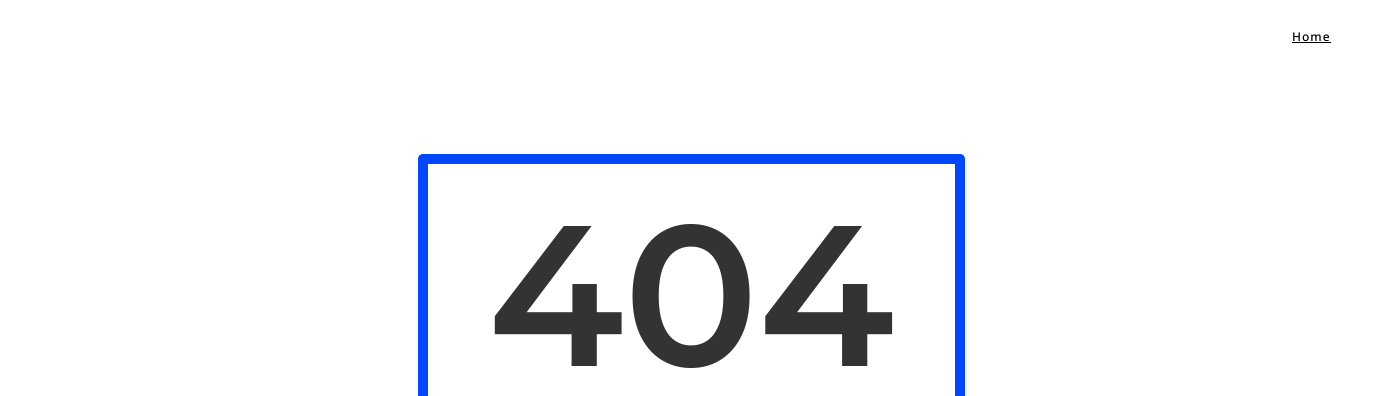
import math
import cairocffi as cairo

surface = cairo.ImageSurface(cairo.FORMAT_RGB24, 1383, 396)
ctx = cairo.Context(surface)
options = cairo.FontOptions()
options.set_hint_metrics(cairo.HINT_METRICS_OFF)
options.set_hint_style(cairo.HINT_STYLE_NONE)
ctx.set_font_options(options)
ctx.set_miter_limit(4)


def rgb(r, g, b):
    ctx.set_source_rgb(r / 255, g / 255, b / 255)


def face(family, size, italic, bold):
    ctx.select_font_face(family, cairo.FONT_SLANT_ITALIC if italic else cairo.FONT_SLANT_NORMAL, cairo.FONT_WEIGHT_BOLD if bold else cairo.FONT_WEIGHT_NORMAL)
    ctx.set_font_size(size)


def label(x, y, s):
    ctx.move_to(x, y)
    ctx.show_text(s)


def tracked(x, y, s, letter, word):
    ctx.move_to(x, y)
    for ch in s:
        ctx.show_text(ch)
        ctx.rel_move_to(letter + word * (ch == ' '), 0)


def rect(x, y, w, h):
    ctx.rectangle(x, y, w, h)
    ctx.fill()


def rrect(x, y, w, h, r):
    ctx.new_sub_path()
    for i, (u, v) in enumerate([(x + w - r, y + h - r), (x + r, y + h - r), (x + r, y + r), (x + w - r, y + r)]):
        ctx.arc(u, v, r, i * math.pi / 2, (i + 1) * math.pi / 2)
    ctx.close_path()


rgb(255, 255, 255)
ctx.paint()
face('Noto Sans Medium', 12, 0, 0)
rgb(0, 0, 0)
tracked(1292, 41, 'Home', 1, 0)
rect(1292, 42, 39, 1)
rgb(0, 71, 255)
rrect(418, 154, 547, 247, 5)
ctx.fill()
rgb(255, 255, 255)
rect(428, 164, 527, 232)
face('Montserrat SemiBold', 200, 0, 0)
rgb(51, 51, 51)
label(488, 366, '404')
surface.write_to_png('render.png')
